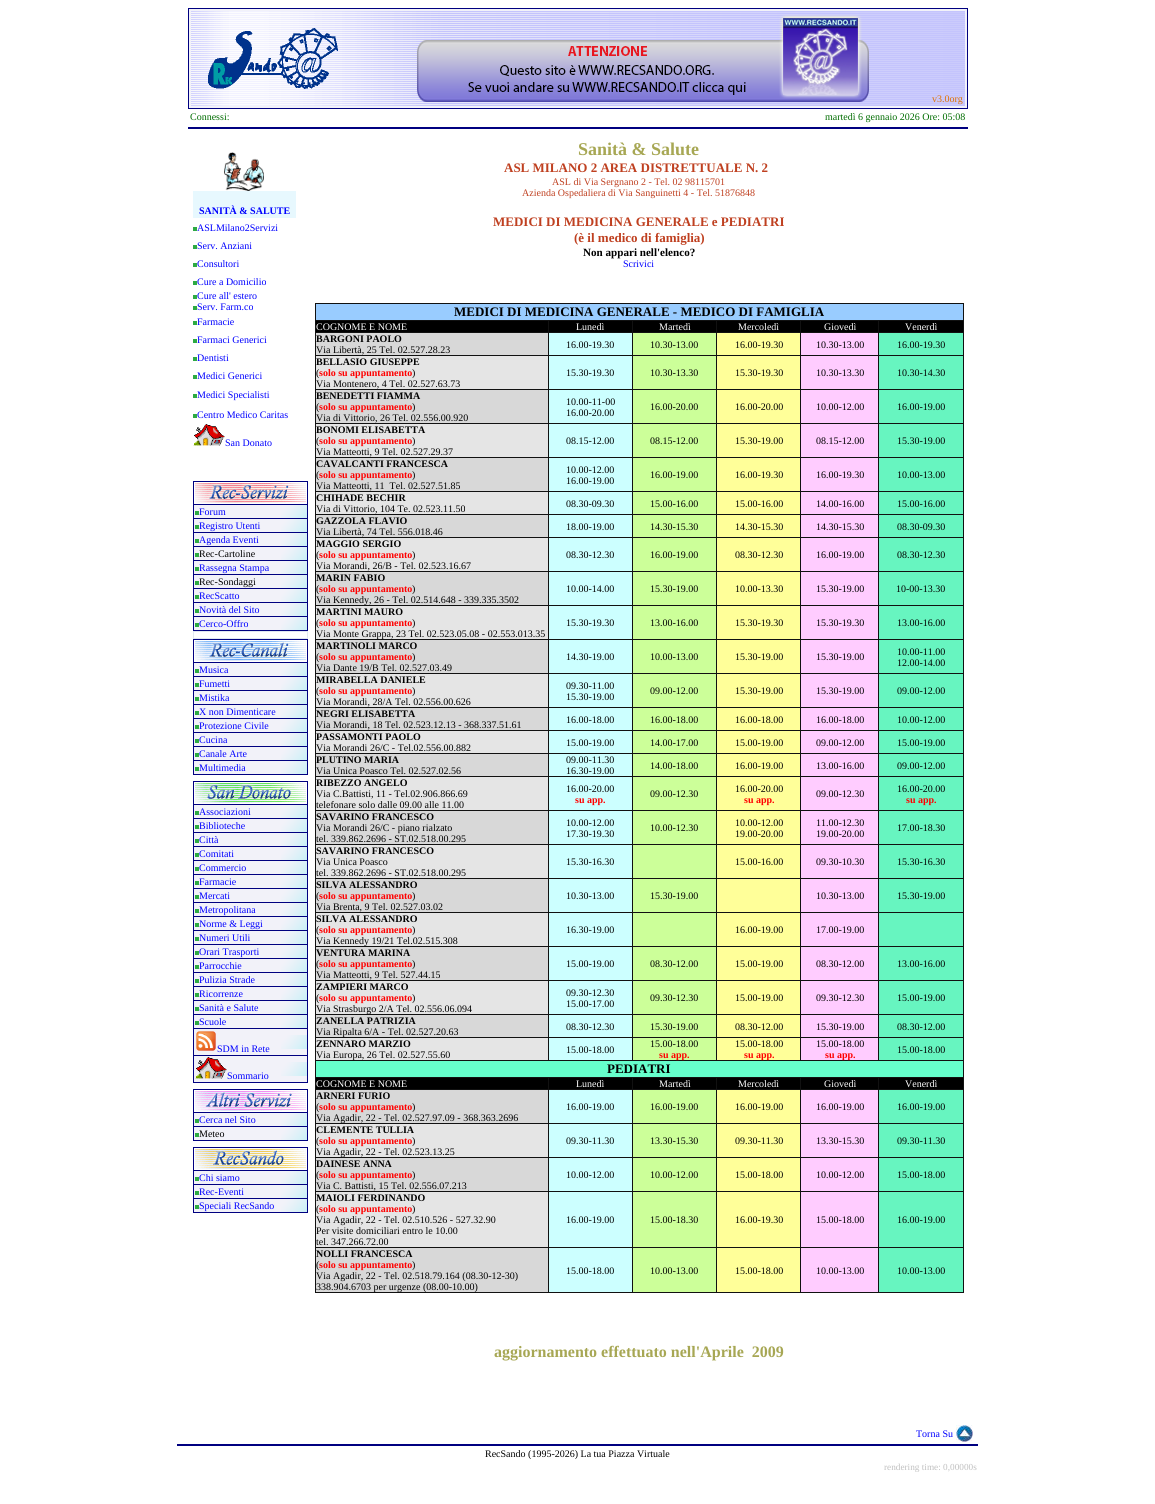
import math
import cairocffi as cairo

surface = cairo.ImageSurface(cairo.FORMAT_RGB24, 1155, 1504)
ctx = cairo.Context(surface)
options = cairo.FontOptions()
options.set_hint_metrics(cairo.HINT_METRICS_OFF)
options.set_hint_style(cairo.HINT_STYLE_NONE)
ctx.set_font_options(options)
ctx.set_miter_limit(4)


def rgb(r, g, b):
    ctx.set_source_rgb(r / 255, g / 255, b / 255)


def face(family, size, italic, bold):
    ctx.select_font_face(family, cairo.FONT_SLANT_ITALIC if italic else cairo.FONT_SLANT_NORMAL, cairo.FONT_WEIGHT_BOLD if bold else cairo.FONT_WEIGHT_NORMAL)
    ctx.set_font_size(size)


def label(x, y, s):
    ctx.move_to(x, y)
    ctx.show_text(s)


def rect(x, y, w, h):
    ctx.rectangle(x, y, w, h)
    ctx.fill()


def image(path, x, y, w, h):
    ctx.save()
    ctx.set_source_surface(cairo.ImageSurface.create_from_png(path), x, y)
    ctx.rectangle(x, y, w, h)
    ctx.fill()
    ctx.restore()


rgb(255, 255, 255)
ctx.paint()
rgb(0, 0, 128)
rect(188, 8, 780, 101)
rgb(242, 242, 249)
rect(189, 9, 778, 99)
image('image0.png', 191, 11, 774, 95)
image('image1.png', 208, 28, 130, 61)
image('image2.png', 417, 15, 452, 87)
face('Liberation Serif', 10, 0, 0)
rgb(225, 113, 0)
label(932, 102, 'v3.0org')
rgb(0, 108, 0)
label(190, 120, 'Connessi:')
label(825, 120, 'martedì 6 gennaio 2026 Ore: 05:08')
rgb(0, 0, 128)
rect(188, 127, 780, 2)
image('image3.png', 224, 152, 40, 39)
rgb(231, 248, 254)
rect(193, 191, 103, 27)
face('Liberation Serif', 10, 0, 1)
rgb(0, 0, 255)
label(199, 214, 'SANITÀ & SALUTE')
rgb(45, 170, 66)
rect(193, 227, 4, 4)
face('Liberation Serif', 10, 0, 0)
rgb(0, 0, 255)
label(197, 231, 'ASLMilano2Servizi')
rgb(45, 170, 66)
rect(193, 245, 4, 4)
rgb(0, 0, 255)
label(197, 249, 'Serv. Anziani')
rgb(45, 170, 66)
rect(193, 263, 4, 4)
rgb(0, 0, 255)
label(197, 267, 'Consultori')
rgb(45, 170, 66)
rect(193, 281, 4, 4)
rgb(0, 0, 255)
label(197, 285, 'Cure a Domicilio')
rgb(45, 170, 66)
rect(193, 295, 4, 4)
rgb(0, 0, 255)
label(197, 299, 'Cure all\' estero')
label(197, 310, 'Serv. Farm.co')
rgb(45, 170, 66)
rect(193, 306, 4, 4)
rect(193, 321, 4, 4)
rgb(0, 0, 255)
label(197, 325, 'Farmacie')
rgb(45, 170, 66)
rect(193, 339, 4, 4)
rgb(0, 0, 255)
label(197, 343, 'Farmaci Generici')
rgb(45, 170, 66)
rect(193, 357, 4, 4)
rgb(0, 0, 255)
label(197, 361, 'Dentisti')
rgb(45, 170, 66)
rect(193, 375, 4, 4)
rgb(0, 0, 255)
label(197, 379, 'Medici Generici')
rgb(45, 170, 66)
rect(193, 394, 4, 4)
rgb(0, 0, 255)
label(197, 398, 'Medici Specialisti')
rgb(45, 170, 66)
rect(193, 414, 4, 4)
rgb(0, 0, 255)
label(197, 418, 'Centro Medico Caritas')
image('image4.png', 193, 424, 32, 22)
label(225, 446, 'San Donato')
rgb(0, 0, 128)
rect(193, 481, 115, 150)
rgb(255, 255, 255)
rect(194, 482, 113, 22)
image('image5.png', 195, 483, 111, 20)
rgb(242, 242, 249)
rect(194, 505, 87, 13)
image('image6.png', 281, 505, 26, 13)
rgb(45, 170, 66)
rect(195, 511, 4, 4)
rgb(0, 0, 255)
label(199, 515, 'Forum')
rgb(242, 242, 249)
rect(194, 519, 87, 13)
image('image6.png', 281, 519, 26, 13)
rgb(45, 170, 66)
rect(195, 525, 4, 4)
rgb(0, 0, 255)
label(199, 529, 'Registro Utenti')
rgb(242, 242, 249)
rect(194, 533, 87, 13)
image('image6.png', 281, 533, 26, 13)
rgb(45, 170, 66)
rect(195, 539, 4, 4)
rgb(0, 0, 255)
label(199, 543, 'Agenda Eventi')
rgb(242, 242, 249)
rect(194, 547, 87, 13)
image('image6.png', 281, 547, 26, 13)
rgb(45, 170, 66)
rect(195, 553, 4, 4)
rgb(0, 0, 0)
label(199, 557, 'Rec-Cartoline')
rgb(242, 242, 249)
rect(194, 561, 87, 13)
image('image6.png', 281, 561, 26, 13)
rgb(45, 170, 66)
rect(195, 567, 4, 4)
rgb(0, 0, 255)
label(199, 571, 'Rassegna Stampa')
rgb(242, 242, 249)
rect(194, 575, 87, 13)
image('image6.png', 281, 575, 26, 13)
rgb(45, 170, 66)
rect(195, 581, 4, 4)
rgb(0, 0, 0)
label(199, 585, 'Rec-Sondaggi')
rgb(242, 242, 249)
rect(194, 589, 87, 13)
image('image6.png', 281, 589, 26, 13)
rgb(45, 170, 66)
rect(195, 595, 4, 4)
rgb(0, 0, 255)
label(199, 599, 'RecScatto')
rgb(242, 242, 249)
rect(194, 603, 87, 13)
image('image6.png', 281, 603, 26, 13)
rgb(45, 170, 66)
rect(195, 609, 4, 4)
rgb(0, 0, 255)
label(199, 613, 'Novità del Sito')
rgb(242, 242, 249)
rect(194, 617, 87, 13)
image('image6.png', 281, 617, 26, 13)
rgb(45, 170, 66)
rect(195, 623, 4, 4)
rgb(0, 0, 255)
label(199, 627, 'Cerco-Offro')
rgb(224, 232, 241)
rect(193, 631, 115, 8)
rgb(255, 255, 255)
rect(194, 632, 113, 6)
rgb(0, 0, 128)
rect(193, 639, 115, 136)
rgb(255, 255, 255)
rect(194, 640, 113, 22)
image('image7.png', 195, 641, 111, 20)
rgb(242, 242, 249)
rect(194, 663, 87, 13)
image('image6.png', 281, 663, 26, 13)
rgb(45, 170, 66)
rect(195, 669, 4, 4)
rgb(0, 0, 255)
label(199, 673, 'Musica')
rgb(242, 242, 249)
rect(194, 677, 87, 13)
image('image6.png', 281, 677, 26, 13)
rgb(45, 170, 66)
rect(195, 683, 4, 4)
rgb(0, 0, 255)
label(199, 687, 'Fumetti')
rgb(242, 242, 249)
rect(194, 691, 87, 13)
image('image6.png', 281, 691, 26, 13)
rgb(45, 170, 66)
rect(195, 697, 4, 4)
rgb(0, 0, 255)
label(199, 701, 'Mistika')
rgb(242, 242, 249)
rect(194, 705, 87, 13)
image('image6.png', 281, 705, 26, 13)
rgb(45, 170, 66)
rect(195, 711, 4, 4)
rgb(0, 0, 255)
label(199, 715, 'X non Dimenticare')
rgb(242, 242, 249)
rect(194, 719, 87, 13)
image('image6.png', 281, 719, 26, 13)
rgb(45, 170, 66)
rect(195, 725, 4, 4)
rgb(0, 0, 255)
label(199, 729, 'Protezione Civile')
rgb(242, 242, 249)
rect(194, 733, 87, 13)
image('image6.png', 281, 733, 26, 13)
rgb(45, 170, 66)
rect(195, 739, 4, 4)
rgb(0, 0, 255)
label(199, 743, 'Cucina')
rgb(242, 242, 249)
rect(194, 747, 87, 13)
image('image6.png', 281, 747, 26, 13)
rgb(45, 170, 66)
rect(195, 753, 4, 4)
rgb(0, 0, 255)
label(199, 757, 'Canale Arte')
rgb(242, 242, 249)
rect(194, 761, 87, 13)
image('image6.png', 281, 761, 26, 13)
rgb(45, 170, 66)
rect(195, 767, 4, 4)
rgb(0, 0, 255)
label(199, 771, 'Multimedia')
rgb(0, 0, 128)
rect(193, 781, 115, 302)
rgb(255, 255, 255)
rect(194, 782, 113, 22)
image('image8.png', 195, 783, 111, 20)
rgb(242, 242, 249)
rect(194, 805, 87, 13)
image('image6.png', 281, 805, 26, 13)
rgb(45, 170, 66)
rect(195, 811, 4, 4)
rgb(0, 0, 255)
label(199, 815, 'Associazioni')
rgb(242, 242, 249)
rect(194, 819, 87, 13)
image('image6.png', 281, 819, 26, 13)
rgb(45, 170, 66)
rect(195, 825, 4, 4)
rgb(0, 0, 255)
label(199, 829, 'Biblioteche')
rgb(242, 242, 249)
rect(194, 833, 87, 13)
image('image6.png', 281, 833, 26, 13)
rgb(45, 170, 66)
rect(195, 839, 4, 4)
rgb(0, 0, 255)
label(199, 843, 'Città')
rgb(242, 242, 249)
rect(194, 847, 87, 13)
image('image6.png', 281, 847, 26, 13)
rgb(45, 170, 66)
rect(195, 853, 4, 4)
rgb(0, 0, 255)
label(199, 857, 'Comitati')
rgb(242, 242, 249)
rect(194, 861, 87, 13)
image('image6.png', 281, 861, 26, 13)
rgb(45, 170, 66)
rect(195, 867, 4, 4)
rgb(0, 0, 255)
label(199, 871, 'Commercio')
rgb(242, 242, 249)
rect(194, 875, 87, 13)
image('image6.png', 281, 875, 26, 13)
rgb(45, 170, 66)
rect(195, 881, 4, 4)
rgb(0, 0, 255)
label(199, 885, 'Farmacie')
rgb(242, 242, 249)
rect(194, 889, 87, 13)
image('image6.png', 281, 889, 26, 13)
rgb(45, 170, 66)
rect(195, 895, 4, 4)
rgb(0, 0, 255)
label(199, 899, 'Mercati')
rgb(242, 242, 249)
rect(194, 903, 87, 13)
image('image6.png', 281, 903, 26, 13)
rgb(45, 170, 66)
rect(195, 909, 4, 4)
rgb(0, 0, 255)
label(199, 913, 'Metropolitana')
rgb(242, 242, 249)
rect(194, 917, 87, 13)
image('image6.png', 281, 917, 26, 13)
rgb(45, 170, 66)
rect(195, 923, 4, 4)
rgb(0, 0, 255)
label(199, 927, 'Norme & Leggi')
rgb(242, 242, 249)
rect(194, 931, 87, 13)
image('image6.png', 281, 931, 26, 13)
rgb(45, 170, 66)
rect(195, 937, 4, 4)
rgb(0, 0, 255)
label(199, 941, 'Numeri Utili')
rgb(242, 242, 249)
rect(194, 945, 87, 13)
image('image6.png', 281, 945, 26, 13)
rgb(45, 170, 66)
rect(195, 951, 4, 4)
rgb(0, 0, 255)
label(199, 955, 'Orari Trasporti')
rgb(242, 242, 249)
rect(194, 959, 87, 13)
image('image6.png', 281, 959, 26, 13)
rgb(45, 170, 66)
rect(195, 965, 4, 4)
rgb(0, 0, 255)
label(199, 969, 'Parrocchie')
rgb(242, 242, 249)
rect(194, 973, 87, 13)
image('image6.png', 281, 973, 26, 13)
rgb(45, 170, 66)
rect(195, 979, 4, 4)
rgb(0, 0, 255)
label(199, 983, 'Pulizia Strade')
rgb(242, 242, 249)
rect(194, 987, 87, 13)
image('image6.png', 281, 987, 26, 13)
rgb(45, 170, 66)
rect(195, 993, 4, 4)
rgb(0, 0, 255)
label(199, 997, 'Ricorrenze')
rgb(242, 242, 249)
rect(194, 1001, 87, 13)
image('image6.png', 281, 1001, 26, 13)
rgb(0, 0, 255)
label(199, 1011, 'Sanità e Salute')
rgb(45, 170, 66)
rect(195, 1007, 4, 4)
rgb(242, 242, 249)
rect(194, 1015, 87, 13)
image('image6.png', 281, 1015, 26, 13)
rgb(0, 0, 255)
label(199, 1025, 'Scuole')
rgb(45, 170, 66)
rect(195, 1021, 4, 4)
rgb(242, 242, 249)
rect(194, 1029, 113, 26)
image('image9.png', 281, 1035, 26, 14)
image('image10.png', 196, 1031, 20, 20)
rgb(0, 0, 255)
label(217, 1052, 'SDM in Rete')
rgb(242, 242, 249)
rect(194, 1056, 113, 26)
image('image9.png', 281, 1062, 26, 14)
image('image11.png', 195, 1057, 32, 22)
rgb(0, 0, 255)
label(227, 1079, 'Sommario')
rgb(0, 0, 128)
rect(193, 1089, 115, 52)
rgb(255, 255, 255)
rect(194, 1090, 113, 22)
image('image12.png', 195, 1091, 111, 20)
rgb(242, 242, 249)
rect(194, 1113, 87, 13)
image('image6.png', 281, 1113, 26, 13)
rgb(45, 170, 66)
rect(195, 1119, 4, 4)
rgb(0, 0, 255)
label(199, 1123, 'Cerca nel Sito')
rgb(242, 242, 249)
rect(194, 1127, 87, 13)
image('image6.png', 281, 1127, 26, 13)
rgb(45, 170, 66)
rect(195, 1133, 4, 4)
rgb(0, 0, 0)
label(199, 1137, 'Meteo')
rgb(0, 0, 128)
rect(193, 1147, 115, 66)
rgb(255, 255, 255)
rect(194, 1148, 113, 22)
image('image13.png', 195, 1149, 111, 20)
rgb(242, 242, 249)
rect(194, 1171, 87, 13)
image('image6.png', 281, 1171, 26, 13)
rgb(45, 170, 66)
rect(195, 1177, 4, 4)
rgb(0, 0, 255)
label(199, 1181, 'Chi siamo')
rgb(242, 242, 249)
rect(194, 1185, 87, 13)
image('image6.png', 281, 1185, 26, 13)
rgb(45, 170, 66)
rect(195, 1191, 4, 4)
rgb(0, 0, 255)
label(199, 1195, 'Rec-Eventi')
rgb(242, 242, 249)
rect(194, 1199, 87, 13)
image('image6.png', 281, 1199, 26, 13)
rgb(0, 0, 255)
label(199, 1209, 'Speciali RecSando')
rgb(45, 170, 66)
rect(195, 1205, 4, 4)
face('Liberation Serif', 18, 0, 1)
rgb(167, 167, 84)
label(578, 155, 'Sanità & Salute')
face('Liberation Serif', 13, 0, 1)
rgb(191, 64, 32)
label(504, 172, 'ASL MILANO 2 AREA DISTRETTUALE N. 2')
face('Liberation Serif', 10, 0, 0)
label(552, 185, 'ASL di Via Sergnano 2 - Tel. 02 98115701')
label(522, 196, 'Azienda Ospedaliera di Via Sanguinetti 4 - Tel. 51876848')
face('Liberation Serif', 13, 0, 1)
label(493, 226, 'MEDICI DI MEDICINA GENERALE e PEDIATRI')
label(574, 242, '(è il medico di famiglia)')
face('Liberation Serif', 11.1, 0, 1)
rgb(0, 0, 0)
label(583, 256, 'Non appari nell\'elenco?')
face('Liberation Serif', 10, 0, 0)
rgb(0, 0, 255)
label(623, 267, 'Scrivici')
rgb(17, 17, 17)
rect(315, 303, 649, 1)
rect(963, 303, 1, 990)
rect(315, 1292, 649, 1)
rect(315, 303, 1, 990)
rgb(153, 204, 255)
rect(316, 304, 647, 16)
face('Liberation Serif', 13, 0, 1)
rgb(0, 0, 0)
label(454, 316, 'MEDICI DI MEDICINA GENERALE - MEDICO DI FAMIGLIA')
rect(316, 321, 232, 11)
rgb(17, 17, 17)
rect(878, 320, 86, 1)
rect(878, 332, 86, 1)
rect(878, 355, 86, 1)
rect(878, 389, 86, 1)
rect(878, 423, 86, 1)
rect(878, 457, 86, 1)
rect(878, 491, 86, 1)
rect(878, 514, 86, 1)
rect(878, 537, 86, 1)
rect(878, 571, 86, 1)
rect(878, 605, 86, 1)
rect(878, 639, 86, 1)
rect(878, 673, 86, 1)
rect(878, 707, 86, 1)
rect(878, 730, 86, 1)
rect(878, 753, 86, 1)
rect(878, 776, 86, 1)
rect(878, 810, 86, 1)
rect(878, 844, 86, 1)
rect(878, 878, 86, 1)
rect(878, 912, 86, 1)
rect(878, 946, 86, 1)
rect(878, 980, 86, 1)
rect(878, 1014, 86, 1)
rect(878, 1037, 86, 1)
rect(315, 1060, 649, 1)
rect(878, 1037, 1, 24)
rect(800, 1037, 79, 1)
rect(878, 1014, 1, 24)
rect(800, 1014, 79, 1)
rect(878, 980, 1, 35)
rect(800, 980, 79, 1)
rect(878, 946, 1, 35)
rect(800, 946, 79, 1)
rect(878, 912, 1, 35)
rect(800, 912, 79, 1)
rect(878, 878, 1, 35)
rect(800, 878, 79, 1)
rect(878, 844, 1, 35)
rect(800, 844, 79, 1)
rect(878, 810, 1, 35)
rect(800, 810, 79, 1)
rect(878, 776, 1, 35)
rect(800, 776, 79, 1)
rect(878, 753, 1, 24)
rect(800, 753, 79, 1)
rect(878, 730, 1, 24)
rect(800, 730, 79, 1)
rect(878, 707, 1, 24)
rect(800, 707, 79, 1)
rect(878, 673, 1, 35)
rect(800, 673, 79, 1)
rect(878, 639, 1, 35)
rect(800, 639, 79, 1)
rect(878, 605, 1, 35)
rect(800, 605, 79, 1)
rect(878, 571, 1, 35)
rect(800, 571, 79, 1)
rect(878, 537, 1, 35)
rect(800, 537, 79, 1)
rect(878, 514, 1, 24)
rect(800, 514, 79, 1)
rect(878, 491, 1, 24)
rect(800, 491, 79, 1)
rect(878, 457, 1, 35)
rect(800, 457, 79, 1)
rect(878, 423, 1, 35)
rect(800, 423, 79, 1)
rect(878, 389, 1, 35)
rect(800, 389, 79, 1)
rect(878, 355, 1, 35)
rect(800, 355, 79, 1)
rect(878, 332, 1, 24)
rect(800, 332, 79, 1)
rect(878, 320, 1, 13)
rect(800, 320, 79, 1)
rect(800, 1037, 1, 24)
rect(716, 1037, 85, 1)
rect(800, 1014, 1, 24)
rect(716, 1014, 85, 1)
rect(800, 980, 1, 35)
rect(716, 980, 85, 1)
rect(800, 946, 1, 35)
rect(716, 946, 85, 1)
rect(800, 912, 1, 35)
rect(716, 912, 85, 1)
rect(800, 878, 1, 35)
rect(716, 878, 85, 1)
rect(800, 844, 1, 35)
rect(716, 844, 85, 1)
rect(800, 810, 1, 35)
rect(716, 810, 85, 1)
rect(800, 776, 1, 35)
rect(716, 776, 85, 1)
rect(800, 753, 1, 24)
rect(716, 753, 85, 1)
rect(800, 730, 1, 24)
rect(716, 730, 85, 1)
rect(800, 707, 1, 24)
rect(716, 707, 85, 1)
rect(800, 673, 1, 35)
rect(716, 673, 85, 1)
rect(800, 639, 1, 35)
rect(716, 639, 85, 1)
rect(800, 605, 1, 35)
rect(716, 605, 85, 1)
rect(800, 571, 1, 35)
rect(716, 571, 85, 1)
rect(800, 537, 1, 35)
rect(716, 537, 85, 1)
rect(800, 514, 1, 24)
rect(716, 514, 85, 1)
rect(800, 491, 1, 24)
rect(716, 491, 85, 1)
rect(800, 457, 1, 35)
rect(716, 457, 85, 1)
rect(800, 423, 1, 35)
rect(716, 423, 85, 1)
rect(800, 389, 1, 35)
rect(716, 389, 85, 1)
rect(800, 355, 1, 35)
rect(716, 355, 85, 1)
rect(800, 332, 1, 24)
rect(716, 332, 85, 1)
rect(800, 320, 1, 13)
rect(716, 320, 85, 1)
rect(716, 1037, 1, 24)
rect(632, 1037, 85, 1)
rect(716, 1014, 1, 24)
rect(632, 1014, 85, 1)
rect(716, 980, 1, 35)
rect(632, 980, 85, 1)
rect(716, 946, 1, 35)
rect(632, 946, 85, 1)
rect(716, 912, 1, 35)
rect(632, 912, 85, 1)
rect(716, 878, 1, 35)
rect(632, 878, 85, 1)
rect(716, 844, 1, 35)
rect(632, 844, 85, 1)
rect(716, 810, 1, 35)
rect(632, 810, 85, 1)
rect(716, 776, 1, 35)
rect(632, 776, 85, 1)
rect(716, 753, 1, 24)
rect(632, 753, 85, 1)
rect(716, 730, 1, 24)
rect(632, 730, 85, 1)
rect(716, 707, 1, 24)
rect(632, 707, 85, 1)
rect(716, 673, 1, 35)
rect(632, 673, 85, 1)
rect(716, 639, 1, 35)
rect(632, 639, 85, 1)
rect(716, 605, 1, 35)
rect(632, 605, 85, 1)
rect(716, 571, 1, 35)
rect(632, 571, 85, 1)
rect(716, 537, 1, 35)
rect(632, 537, 85, 1)
rect(716, 514, 1, 24)
rect(632, 514, 85, 1)
rect(716, 491, 1, 24)
rect(632, 491, 85, 1)
rect(716, 457, 1, 35)
rect(632, 457, 85, 1)
rect(716, 423, 1, 35)
rect(632, 423, 85, 1)
rect(716, 389, 1, 35)
rect(632, 389, 85, 1)
rect(716, 355, 1, 35)
rect(632, 355, 85, 1)
rect(716, 332, 1, 24)
rect(632, 332, 85, 1)
rect(716, 320, 1, 13)
rect(632, 320, 85, 1)
rect(632, 1037, 1, 24)
rect(548, 1037, 85, 1)
rect(632, 1014, 1, 24)
rect(548, 1014, 85, 1)
rect(632, 980, 1, 35)
rect(548, 980, 85, 1)
rect(632, 946, 1, 35)
rect(548, 946, 85, 1)
rect(632, 912, 1, 35)
rect(548, 912, 85, 1)
rect(632, 878, 1, 35)
rect(548, 878, 85, 1)
rect(632, 844, 1, 35)
rect(548, 844, 85, 1)
rect(632, 810, 1, 35)
rect(548, 810, 85, 1)
rect(632, 776, 1, 35)
rect(548, 776, 85, 1)
rect(632, 753, 1, 24)
rect(548, 753, 85, 1)
rect(632, 730, 1, 24)
rect(548, 730, 85, 1)
rect(632, 707, 1, 24)
rect(548, 707, 85, 1)
rect(632, 673, 1, 35)
rect(548, 673, 85, 1)
rect(632, 639, 1, 35)
rect(548, 639, 85, 1)
rect(632, 605, 1, 35)
rect(548, 605, 85, 1)
rect(632, 571, 1, 35)
rect(548, 571, 85, 1)
rect(632, 537, 1, 35)
rect(548, 537, 85, 1)
rect(632, 514, 1, 24)
rect(548, 514, 85, 1)
rect(632, 491, 1, 24)
rect(548, 491, 85, 1)
rect(632, 457, 1, 35)
rect(548, 457, 85, 1)
rect(632, 423, 1, 35)
rect(548, 423, 85, 1)
rect(632, 389, 1, 35)
rect(548, 389, 85, 1)
rect(632, 355, 1, 35)
rect(548, 355, 85, 1)
rect(632, 332, 1, 24)
rect(548, 332, 85, 1)
rect(632, 320, 1, 13)
rect(548, 320, 85, 1)
rect(548, 1037, 1, 24)
rect(315, 1037, 234, 1)
rect(548, 1014, 1, 24)
rect(315, 1014, 234, 1)
rect(548, 980, 1, 35)
rect(315, 980, 234, 1)
rect(548, 946, 1, 35)
rect(315, 946, 234, 1)
rect(548, 912, 1, 35)
rect(315, 912, 234, 1)
rect(548, 878, 1, 35)
rect(315, 878, 234, 1)
rect(548, 844, 1, 35)
rect(315, 844, 234, 1)
rect(548, 810, 1, 35)
rect(315, 810, 234, 1)
rect(548, 776, 1, 35)
rect(315, 776, 234, 1)
rect(548, 753, 1, 24)
rect(315, 753, 234, 1)
rect(548, 730, 1, 24)
rect(315, 730, 234, 1)
rect(548, 707, 1, 24)
rect(315, 707, 234, 1)
rect(548, 673, 1, 35)
rect(315, 673, 234, 1)
rect(548, 639, 1, 35)
rect(315, 639, 234, 1)
rect(548, 605, 1, 35)
rect(315, 605, 234, 1)
rect(548, 571, 1, 35)
rect(315, 571, 234, 1)
rect(548, 537, 1, 35)
rect(315, 537, 234, 1)
rect(548, 514, 1, 24)
rect(315, 514, 234, 1)
rect(548, 491, 1, 24)
rect(315, 491, 234, 1)
rect(548, 457, 1, 35)
rect(315, 457, 234, 1)
rect(548, 423, 1, 35)
rect(315, 423, 234, 1)
rect(548, 389, 1, 35)
rect(315, 389, 234, 1)
rect(548, 355, 1, 35)
rect(315, 355, 234, 1)
rect(548, 332, 1, 24)
rect(315, 332, 234, 1)
rect(548, 320, 1, 13)
rect(315, 320, 234, 1)
face('Liberation Serif', 10, 0, 0)
rgb(255, 255, 255)
label(316, 330, 'COGNOME E NOME')
rgb(0, 0, 0)
rect(549, 321, 83, 11)
rgb(255, 255, 255)
label(576, 330, 'Lunedì')
rgb(0, 0, 0)
rect(633, 321, 83, 11)
rgb(255, 255, 255)
label(659, 330, 'Martedì')
rgb(0, 0, 0)
rect(717, 321, 83, 11)
rgb(255, 255, 255)
label(738, 330, 'Mercoledì')
rgb(0, 0, 0)
rect(801, 321, 77, 11)
rgb(255, 255, 255)
label(824, 330, 'Giovedì')
rgb(0, 0, 0)
rect(879, 321, 84, 11)
rgb(255, 255, 255)
label(905, 330, 'Venerdì')
rgb(216, 216, 216)
rect(316, 333, 232, 22)
face('Liberation Serif', 10, 0, 1)
rgb(0, 0, 0)
label(316, 342, 'BARGONI PAOLO')
face('Liberation Serif', 10, 0, 0)
label(316, 353, 'Via Libertà, 25 Tel. 02.527.28.23')
rgb(204, 255, 255)
rect(549, 333, 83, 22)
rgb(0, 0, 0)
label(566, 348, '16.00-19.30')
rgb(204, 255, 153)
rect(633, 333, 83, 22)
rgb(0, 0, 0)
label(650, 348, '10.30-13.00')
rgb(255, 255, 153)
rect(717, 333, 83, 22)
rgb(0, 0, 0)
label(735, 348, '16.00-19.30')
rgb(255, 204, 255)
rect(801, 333, 77, 22)
rgb(0, 0, 0)
label(816, 348, '10.30-13.00')
rgb(103, 245, 192)
rect(879, 333, 84, 22)
rgb(0, 0, 0)
label(897, 348, '16.00-19.30')
rgb(229, 229, 229)
rect(316, 356, 232, 33)
face('Liberation Serif', 10, 0, 1)
rgb(0, 0, 0)
label(316, 365, 'BELLASIO GIUSEPPE')
face('Liberation Serif', 10, 0, 0)
label(316, 376, '(')
face('Liberation Serif', 10, 0, 1)
rgb(255, 0, 0)
label(319, 376, 'solo su appuntamento')
face('Liberation Serif', 10, 0, 0)
rgb(0, 0, 0)
label(412, 376, ')')
label(316, 387, 'Via Montenero, 4 Tel. 02.527.63.73')
rgb(204, 255, 255)
rect(549, 356, 83, 33)
rgb(0, 0, 0)
label(566, 376, '15.30-19.30')
rgb(204, 255, 153)
rect(633, 356, 83, 33)
rgb(0, 0, 0)
label(650, 376, '10.30-13.30')
rgb(255, 255, 153)
rect(717, 356, 83, 33)
rgb(0, 0, 0)
label(735, 376, '15.30-19.30')
rgb(255, 204, 255)
rect(801, 356, 77, 33)
rgb(0, 0, 0)
label(816, 376, '10.30-13.30')
rgb(103, 245, 192)
rect(879, 356, 84, 33)
rgb(0, 0, 0)
label(897, 376, '10.30-14.30')
rgb(216, 216, 216)
rect(316, 390, 232, 33)
face('Liberation Serif', 10, 0, 1)
rgb(0, 0, 0)
label(316, 399, 'BENEDETTI FIAMMA')
face('Liberation Serif', 10, 0, 0)
label(316, 410, '(')
face('Liberation Serif', 10, 0, 1)
rgb(255, 0, 0)
label(319, 410, 'solo su appuntamento')
face('Liberation Serif', 10, 0, 0)
rgb(0, 0, 0)
label(412, 410, ')')
label(316, 421, 'Via di Vittorio, 26 Tel. 02.556.00.920')
rgb(204, 255, 255)
rect(549, 390, 83, 33)
rgb(0, 0, 0)
label(566, 405, '10.00-11-00')
label(566, 416, '16.00-20.00')
rgb(204, 255, 153)
rect(633, 390, 83, 33)
rgb(0, 0, 0)
label(650, 410, '16.00-20.00')
rgb(255, 255, 153)
rect(717, 390, 83, 33)
rgb(0, 0, 0)
label(735, 410, '16.00-20.00')
rgb(255, 204, 255)
rect(801, 390, 77, 33)
rgb(0, 0, 0)
label(816, 410, '10.00-12.00')
rgb(103, 245, 192)
rect(879, 390, 84, 33)
rgb(0, 0, 0)
label(897, 410, '16.00-19.00')
rgb(229, 229, 229)
rect(316, 424, 232, 33)
face('Liberation Serif', 10, 0, 1)
rgb(0, 0, 0)
label(316, 433, 'BONOMI ELISABETTA')
face('Liberation Serif', 10, 0, 0)
label(316, 444, '(')
face('Liberation Serif', 10, 0, 1)
rgb(255, 0, 0)
label(319, 444, 'solo su appuntamento')
face('Liberation Serif', 10, 0, 0)
rgb(0, 0, 0)
label(412, 444, ')')
label(316, 455, 'Via Matteotti, 9 Tel. 02.527.29.37')
rgb(204, 255, 255)
rect(549, 424, 83, 33)
rgb(0, 0, 0)
label(566, 444, '08.15-12.00')
rgb(204, 255, 153)
rect(633, 424, 83, 33)
rgb(0, 0, 0)
label(650, 444, '08.15-12.00')
rgb(255, 255, 153)
rect(717, 424, 83, 33)
rgb(0, 0, 0)
label(735, 444, '15.30-19.00')
rgb(255, 204, 255)
rect(801, 424, 77, 33)
rgb(0, 0, 0)
label(816, 444, '08.15-12.00')
rgb(103, 245, 192)
rect(879, 424, 84, 33)
rgb(0, 0, 0)
label(897, 444, '15.30-19.00')
rgb(216, 216, 216)
rect(316, 458, 232, 33)
face('Liberation Serif', 10, 0, 1)
rgb(0, 0, 0)
label(316, 467, 'CAVALCANTI FRANCESCA')
face('Liberation Serif', 10, 0, 0)
label(316, 478, '(')
face('Liberation Serif', 10, 0, 1)
rgb(255, 0, 0)
label(319, 478, 'solo su appuntamento')
face('Liberation Serif', 10, 0, 0)
rgb(0, 0, 0)
label(412, 478, ')')
label(316, 489, 'Via Matteotti, 11  Tel. 02.527.51.85')
rgb(204, 255, 255)
rect(549, 458, 83, 33)
rgb(0, 0, 0)
label(566, 473, '10.00-12.00')
label(566, 484, '16.00-19.00')
rgb(204, 255, 153)
rect(633, 458, 83, 33)
rgb(0, 0, 0)
label(650, 478, '16.00-19.00')
rgb(255, 255, 153)
rect(717, 458, 83, 33)
rgb(0, 0, 0)
label(735, 478, '16.00-19.30')
rgb(255, 204, 255)
rect(801, 458, 77, 33)
rgb(0, 0, 0)
label(816, 478, '16.00-19.30')
rgb(103, 245, 192)
rect(879, 458, 84, 33)
rgb(0, 0, 0)
label(897, 478, '10.00-13.00')
rgb(229, 229, 229)
rect(316, 492, 232, 22)
face('Liberation Serif', 10, 0, 1)
rgb(0, 0, 0)
label(316, 501, 'CHIHADE BECHIR')
face('Liberation Serif', 10, 0, 0)
label(316, 512, 'Via di Vittorio, 104 Te. 02.523.11.50')
rgb(204, 255, 255)
rect(549, 492, 83, 22)
rgb(0, 0, 0)
label(566, 507, '08.30-09.30')
rgb(204, 255, 153)
rect(633, 492, 83, 22)
rgb(0, 0, 0)
label(650, 507, '15.00-16.00')
rgb(255, 255, 153)
rect(717, 492, 83, 22)
rgb(0, 0, 0)
label(735, 507, '15.00-16.00')
rgb(255, 204, 255)
rect(801, 492, 77, 22)
rgb(0, 0, 0)
label(816, 507, '14.00-16.00')
rgb(103, 245, 192)
rect(879, 492, 84, 22)
rgb(0, 0, 0)
label(897, 507, '15.00-16.00')
rgb(216, 216, 216)
rect(316, 515, 232, 22)
face('Liberation Serif', 10, 0, 1)
rgb(0, 0, 0)
label(316, 524, 'GAZZOLA FLAVIO')
face('Liberation Serif', 10, 0, 0)
label(316, 535, 'Via Libertà, 74 Tel. 556.018.46')
rgb(204, 255, 255)
rect(549, 515, 83, 22)
rgb(0, 0, 0)
label(566, 530, '18.00-19.00')
rgb(204, 255, 153)
rect(633, 515, 83, 22)
rgb(0, 0, 0)
label(650, 530, '14.30-15.30')
rgb(255, 255, 153)
rect(717, 515, 83, 22)
rgb(0, 0, 0)
label(735, 530, '14.30-15.30')
rgb(255, 204, 255)
rect(801, 515, 77, 22)
rgb(0, 0, 0)
label(816, 530, '14.30-15.30')
rgb(103, 245, 192)
rect(879, 515, 84, 22)
rgb(0, 0, 0)
label(897, 530, '08.30-09.30')
rgb(229, 229, 229)
rect(316, 538, 232, 33)
face('Liberation Serif', 10, 0, 1)
rgb(0, 0, 0)
label(316, 547, 'MAGGIO SERGIO')
face('Liberation Serif', 10, 0, 0)
label(316, 558, '(')
face('Liberation Serif', 10, 0, 1)
rgb(255, 0, 0)
label(319, 558, 'solo su appuntamento')
face('Liberation Serif', 10, 0, 0)
rgb(0, 0, 0)
label(412, 558, ')')
label(316, 569, 'Via Morandi, 26/B - Tel. 02.523.16.67')
rgb(204, 255, 255)
rect(549, 538, 83, 33)
rgb(0, 0, 0)
label(566, 558, '08.30-12.30')
rgb(204, 255, 153)
rect(633, 538, 83, 33)
rgb(0, 0, 0)
label(650, 558, '16.00-19.00')
rgb(255, 255, 153)
rect(717, 538, 83, 33)
rgb(0, 0, 0)
label(735, 558, '08.30-12.30')
rgb(255, 204, 255)
rect(801, 538, 77, 33)
rgb(0, 0, 0)
label(816, 558, '16.00-19.00')
rgb(103, 245, 192)
rect(879, 538, 84, 33)
rgb(0, 0, 0)
label(897, 558, '08.30-12.30')
rgb(216, 216, 216)
rect(316, 572, 232, 33)
face('Liberation Serif', 10, 0, 1)
rgb(0, 0, 0)
label(316, 581, 'MARIN FABIO')
face('Liberation Serif', 10, 0, 0)
label(316, 592, '(')
face('Liberation Serif', 10, 0, 1)
rgb(255, 0, 0)
label(319, 592, 'solo su appuntamento')
face('Liberation Serif', 10, 0, 0)
rgb(0, 0, 0)
label(412, 592, ')')
label(316, 603, 'Via Kennedy, 26 - Tel. 02.514.648 - 339.335.3502')
rgb(204, 255, 255)
rect(549, 572, 83, 33)
rgb(0, 0, 0)
label(566, 592, '10.00-14.00')
rgb(204, 255, 153)
rect(633, 572, 83, 33)
rgb(0, 0, 0)
label(650, 592, '15.30-19.00')
rgb(255, 255, 153)
rect(717, 572, 83, 33)
rgb(0, 0, 0)
label(735, 592, '10.00-13.30')
rgb(255, 204, 255)
rect(801, 572, 77, 33)
rgb(0, 0, 0)
label(816, 592, '15.30-19.00')
rgb(103, 245, 192)
rect(879, 572, 84, 33)
rgb(0, 0, 0)
label(896, 592, '10-00-13.30')
rgb(229, 229, 229)
rect(316, 606, 232, 33)
face('Liberation Serif', 10, 0, 1)
rgb(0, 0, 0)
label(316, 615, 'MARTINI MAURO')
face('Liberation Serif', 10, 0, 0)
label(316, 626, '(')
face('Liberation Serif', 10, 0, 1)
rgb(255, 0, 0)
label(319, 626, 'solo su appuntamento')
face('Liberation Serif', 10, 0, 0)
rgb(0, 0, 0)
label(412, 626, ')')
label(316, 637, 'Via Monte Grappa, 23 Tel. 02.523.05.08 - 02.553.013.35')
rgb(204, 255, 255)
rect(549, 606, 83, 33)
rgb(0, 0, 0)
label(566, 626, '15.30-19.30')
rgb(204, 255, 153)
rect(633, 606, 83, 33)
rgb(0, 0, 0)
label(650, 626, '13.00-16.00')
rgb(255, 255, 153)
rect(717, 606, 83, 33)
rgb(0, 0, 0)
label(735, 626, '15.30-19.30')
rgb(255, 204, 255)
rect(801, 606, 77, 33)
rgb(0, 0, 0)
label(816, 626, '15.30-19.30')
rgb(103, 245, 192)
rect(879, 606, 84, 33)
rgb(0, 0, 0)
label(897, 626, '13.00-16.00')
rgb(216, 216, 216)
rect(316, 640, 232, 33)
face('Liberation Serif', 10, 0, 1)
rgb(0, 0, 0)
label(316, 649, 'MARTINOLI MARCO')
face('Liberation Serif', 10, 0, 0)
label(316, 660, '(')
face('Liberation Serif', 10, 0, 1)
rgb(255, 0, 0)
label(319, 660, 'solo su appuntamento')
face('Liberation Serif', 10, 0, 0)
rgb(0, 0, 0)
label(412, 660, ')')
label(316, 671, 'Via Dante 19/B Tel. 02.527.03.49')
rgb(204, 255, 255)
rect(549, 640, 83, 33)
rgb(0, 0, 0)
label(566, 660, '14.30-19.00')
rgb(204, 255, 153)
rect(633, 640, 83, 33)
rgb(0, 0, 0)
label(650, 660, '10.00-13.00')
rgb(255, 255, 153)
rect(717, 640, 83, 33)
rgb(0, 0, 0)
label(735, 660, '15.30-19.00')
rgb(255, 204, 255)
rect(801, 640, 77, 33)
rgb(0, 0, 0)
label(816, 660, '15.30-19.00')
rgb(103, 245, 192)
rect(879, 640, 84, 33)
rgb(0, 0, 0)
label(897, 655, '10.00-11.00')
label(897, 666, '12.00-14.00')
rgb(229, 229, 229)
rect(316, 674, 232, 33)
face('Liberation Serif', 10, 0, 1)
rgb(0, 0, 0)
label(316, 683, 'MIRABELLA DANIELE')
face('Liberation Serif', 10, 0, 0)
label(316, 694, '(')
face('Liberation Serif', 10, 0, 1)
rgb(255, 0, 0)
label(319, 694, 'solo su appuntamento')
face('Liberation Serif', 10, 0, 0)
rgb(0, 0, 0)
label(412, 694, ')')
label(316, 705, 'Via Morandi, 28/A Tel. 02.556.00.626')
rgb(204, 255, 255)
rect(549, 674, 83, 33)
rgb(0, 0, 0)
label(566, 689, '09.30-11.00')
label(566, 700, '15.30-19.00')
rgb(204, 255, 153)
rect(633, 674, 83, 33)
rgb(0, 0, 0)
label(650, 694, '09.00-12.00')
rgb(255, 255, 153)
rect(717, 674, 83, 33)
rgb(0, 0, 0)
label(735, 694, '15.30-19.00')
rgb(255, 204, 255)
rect(801, 674, 77, 33)
rgb(0, 0, 0)
label(816, 694, '15.30-19.00')
rgb(103, 245, 192)
rect(879, 674, 84, 33)
rgb(0, 0, 0)
label(897, 694, '09.00-12.00')
rgb(216, 216, 216)
rect(316, 708, 232, 22)
face('Liberation Serif', 10, 0, 1)
rgb(0, 0, 0)
label(316, 717, 'NEGRI ELISABETTA')
face('Liberation Serif', 10, 0, 0)
label(316, 728, 'Via Morandi, 18 Tel. 02.523.12.13 - 368.337.51.61')
rgb(204, 255, 255)
rect(549, 708, 83, 22)
rgb(0, 0, 0)
label(566, 723, '16.00-18.00')
rgb(204, 255, 153)
rect(633, 708, 83, 22)
rgb(0, 0, 0)
label(650, 723, '16.00-18.00')
rgb(255, 255, 153)
rect(717, 708, 83, 22)
rgb(0, 0, 0)
label(735, 723, '16.00-18.00')
rgb(255, 204, 255)
rect(801, 708, 77, 22)
rgb(0, 0, 0)
label(816, 723, '16.00-18.00')
rgb(103, 245, 192)
rect(879, 708, 84, 22)
rgb(0, 0, 0)
label(897, 723, '10.00-12.00')
rgb(229, 229, 229)
rect(316, 731, 232, 22)
face('Liberation Serif', 10, 0, 1)
rgb(0, 0, 0)
label(316, 740, 'PASSAMONTI PAOLO')
face('Liberation Serif', 10, 0, 0)
label(316, 751, 'Via Morandi 26/C - Tel.02.556.00.882')
rgb(204, 255, 255)
rect(549, 731, 83, 22)
rgb(0, 0, 0)
label(566, 746, '15.00-19.00')
rgb(204, 255, 153)
rect(633, 731, 83, 22)
rgb(0, 0, 0)
label(650, 746, '14.00-17.00')
rgb(255, 255, 153)
rect(717, 731, 83, 22)
rgb(0, 0, 0)
label(735, 746, '15.00-19.00')
rgb(255, 204, 255)
rect(801, 731, 77, 22)
rgb(0, 0, 0)
label(816, 746, '09.00-12.00')
rgb(103, 245, 192)
rect(879, 731, 84, 22)
rgb(0, 0, 0)
label(897, 746, '15.00-19.00')
rgb(216, 216, 216)
rect(316, 754, 232, 22)
face('Liberation Serif', 10, 0, 1)
rgb(0, 0, 0)
label(316, 763, 'PLUTINO MARIA')
face('Liberation Serif', 10, 0, 0)
label(316, 774, 'Via Unica Poasco Tel. 02.527.02.56')
rgb(204, 255, 255)
rect(549, 754, 83, 22)
rgb(0, 0, 0)
label(566, 763, '09.00-11.30')
label(566, 774, '16.30-19.00')
rgb(204, 255, 153)
rect(633, 754, 83, 22)
rgb(0, 0, 0)
label(650, 769, '14.00-18.00')
rgb(255, 255, 153)
rect(717, 754, 83, 22)
rgb(0, 0, 0)
label(735, 769, '16.00-19.00')
rgb(255, 204, 255)
rect(801, 754, 77, 22)
rgb(0, 0, 0)
label(816, 769, '13.00-16.00')
rgb(103, 245, 192)
rect(879, 754, 84, 22)
rgb(0, 0, 0)
label(897, 769, '09.00-12.00')
rgb(229, 229, 229)
rect(316, 777, 232, 33)
face('Liberation Serif', 10, 0, 1)
rgb(0, 0, 0)
label(316, 786, 'RIBEZZO ANGELO')
face('Liberation Serif', 10, 0, 0)
label(316, 797, 'Via C.Battisti, 11 - Tel.02.906.866.69')
label(316, 808, 'telefonare solo dalle 09.00 alle 11.00')
rgb(204, 255, 255)
rect(549, 777, 83, 33)
rgb(0, 0, 0)
label(566, 792, '16.00-20.00')
face('Liberation Serif', 10, 0, 1)
rgb(255, 0, 0)
label(575, 803, 'su app.')
rgb(204, 255, 153)
rect(633, 777, 83, 33)
face('Liberation Serif', 10, 0, 0)
rgb(0, 0, 0)
label(650, 797, '09.00-12.30')
rgb(255, 255, 153)
rect(717, 777, 83, 33)
rgb(0, 0, 0)
label(735, 792, '16.00-20.00')
face('Liberation Serif', 10, 0, 1)
rgb(255, 0, 0)
label(744, 803, 'su app.')
rgb(255, 204, 255)
rect(801, 777, 77, 33)
face('Liberation Serif', 10, 0, 0)
rgb(0, 0, 0)
label(816, 797, '09.00-12.30')
rgb(103, 245, 192)
rect(879, 777, 84, 33)
rgb(0, 0, 0)
label(897, 792, '16.00-20.00')
face('Liberation Serif', 10, 0, 1)
rgb(255, 0, 0)
label(906, 803, 'su app.')
rgb(216, 216, 216)
rect(316, 811, 232, 33)
rgb(0, 0, 0)
label(316, 820, 'SAVARINO FRANCESCO')
face('Liberation Serif', 10, 0, 0)
label(316, 831, 'Via Morandi 26/C - piano rialzato')
label(316, 842, 'tel. 339.862.2696 - ST.02.518.00.295')
rgb(204, 255, 255)
rect(549, 811, 83, 33)
rgb(0, 0, 0)
label(566, 826, '10.00-12.00')
label(566, 837, '17.30-19.30')
rgb(204, 255, 153)
rect(633, 811, 83, 33)
rgb(0, 0, 0)
label(650, 831, '10.00-12.30')
rgb(255, 255, 153)
rect(717, 811, 83, 33)
rgb(0, 0, 0)
label(735, 826, '10.00-12.00')
label(735, 837, '19.00-20.00')
rgb(255, 204, 255)
rect(801, 811, 77, 33)
rgb(0, 0, 0)
label(816, 826, '11.00-12.30')
label(816, 837, '19.00-20.00')
rgb(103, 245, 192)
rect(879, 811, 84, 33)
rgb(0, 0, 0)
label(897, 831, '17.00-18.30')
rgb(229, 229, 229)
rect(316, 845, 232, 33)
face('Liberation Serif', 10, 0, 1)
rgb(0, 0, 0)
label(316, 854, 'SAVARINO FRANCESCO')
face('Liberation Serif', 10, 0, 0)
label(316, 865, 'Via Unica Poasco')
label(316, 876, 'tel. 339.862.2696 - ST.02.518.00.295')
rgb(204, 255, 255)
rect(549, 845, 83, 33)
rgb(0, 0, 0)
label(566, 865, '15.30-16.30')
rgb(204, 255, 153)
rect(633, 845, 83, 33)
rgb(255, 255, 153)
rect(717, 845, 83, 33)
rgb(0, 0, 0)
label(735, 865, '15.00-16.00')
rgb(255, 204, 255)
rect(801, 845, 77, 33)
rgb(0, 0, 0)
label(816, 865, '09.30-10.30')
rgb(103, 245, 192)
rect(879, 845, 84, 33)
rgb(0, 0, 0)
label(897, 865, '15.30-16.30')
rgb(216, 216, 216)
rect(316, 879, 232, 33)
face('Liberation Serif', 10, 0, 1)
rgb(0, 0, 0)
label(316, 888, 'SILVA ALESSANDRO')
face('Liberation Serif', 10, 0, 0)
label(316, 899, '(')
face('Liberation Serif', 10, 0, 1)
rgb(255, 0, 0)
label(319, 899, 'solo su appuntamento')
face('Liberation Serif', 10, 0, 0)
rgb(0, 0, 0)
label(412, 899, ')')
label(316, 910, 'Via Brenta, 9 Tel. 02.527.03.02')
rgb(204, 255, 255)
rect(549, 879, 83, 33)
rgb(0, 0, 0)
label(566, 899, '10.30-13.00')
rgb(204, 255, 153)
rect(633, 879, 83, 33)
rgb(0, 0, 0)
label(650, 899, '15.30-19.00')
rgb(255, 255, 153)
rect(717, 879, 83, 33)
rgb(255, 204, 255)
rect(801, 879, 77, 33)
rgb(0, 0, 0)
label(816, 899, '10.30-13.00')
rgb(103, 245, 192)
rect(879, 879, 84, 33)
rgb(0, 0, 0)
label(897, 899, '15.30-19.00')
rgb(229, 229, 229)
rect(316, 913, 232, 33)
face('Liberation Serif', 10, 0, 1)
rgb(0, 0, 0)
label(316, 922, 'SILVA ALESSANDRO')
face('Liberation Serif', 10, 0, 0)
label(316, 933, '(')
face('Liberation Serif', 10, 0, 1)
rgb(255, 0, 0)
label(319, 933, 'solo su appuntamento')
face('Liberation Serif', 10, 0, 0)
rgb(0, 0, 0)
label(412, 933, ')')
label(316, 944, 'Via Kennedy 19/21 Tel.02.515.308')
rgb(204, 255, 255)
rect(549, 913, 83, 33)
rgb(0, 0, 0)
label(566, 933, '16.30-19.00')
rgb(204, 255, 153)
rect(633, 913, 83, 33)
rgb(255, 255, 153)
rect(717, 913, 83, 33)
rgb(0, 0, 0)
label(735, 933, '16.00-19.00')
rgb(255, 204, 255)
rect(801, 913, 77, 33)
rgb(0, 0, 0)
label(816, 933, '17.00-19.00')
rgb(103, 245, 192)
rect(879, 913, 84, 33)
rgb(216, 216, 216)
rect(316, 947, 232, 33)
face('Liberation Serif', 10, 0, 1)
rgb(0, 0, 0)
label(316, 956, 'VENTURA MARINA')
face('Liberation Serif', 10, 0, 0)
label(316, 967, '(')
face('Liberation Serif', 10, 0, 1)
rgb(255, 0, 0)
label(319, 967, 'solo su appuntamento')
face('Liberation Serif', 10, 0, 0)
rgb(0, 0, 0)
label(412, 967, ')')
label(316, 978, 'Via Matteotti, 9 Tel. 527.44.15')
rgb(204, 255, 255)
rect(549, 947, 83, 33)
rgb(0, 0, 0)
label(566, 967, '15.00-19.00')
rgb(204, 255, 153)
rect(633, 947, 83, 33)
rgb(0, 0, 0)
label(650, 967, '08.30-12.00')
rgb(255, 255, 153)
rect(717, 947, 83, 33)
rgb(0, 0, 0)
label(735, 967, '15.00-19.00')
rgb(255, 204, 255)
rect(801, 947, 77, 33)
rgb(0, 0, 0)
label(816, 967, '08.30-12.00')
rgb(103, 245, 192)
rect(879, 947, 84, 33)
rgb(0, 0, 0)
label(897, 967, '13.00-16.00')
rgb(229, 229, 229)
rect(316, 981, 232, 33)
face('Liberation Serif', 10, 0, 1)
rgb(0, 0, 0)
label(316, 990, 'ZAMPIERI MARCO')
face('Liberation Serif', 10, 0, 0)
label(316, 1001, '(')
face('Liberation Serif', 10, 0, 1)
rgb(255, 0, 0)
label(319, 1001, 'solo su appuntamento')
face('Liberation Serif', 10, 0, 0)
rgb(0, 0, 0)
label(412, 1001, ')')
label(316, 1012, 'Via Strasburgo 2/A Tel. 02.556.06.094')
rgb(204, 255, 255)
rect(549, 981, 83, 33)
rgb(0, 0, 0)
label(566, 996, '09.30-12.30')
label(566, 1007, '15.00-17.00')
rgb(204, 255, 153)
rect(633, 981, 83, 33)
rgb(0, 0, 0)
label(650, 1001, '09.30-12.30')
rgb(255, 255, 153)
rect(717, 981, 83, 33)
rgb(0, 0, 0)
label(735, 1001, '15.00-19.00')
rgb(255, 204, 255)
rect(801, 981, 77, 33)
rgb(0, 0, 0)
label(816, 1001, '09.30-12.30')
rgb(103, 245, 192)
rect(879, 981, 84, 33)
rgb(0, 0, 0)
label(897, 1001, '15.00-19.00')
rgb(216, 216, 216)
rect(316, 1015, 232, 22)
face('Liberation Serif', 10, 0, 1)
rgb(0, 0, 0)
label(316, 1024, 'ZANELLA PATRIZIA')
face('Liberation Serif', 10, 0, 0)
label(316, 1035, 'Via Ripalta 6/A - Tel. 02.527.20.63')
rgb(204, 255, 255)
rect(549, 1015, 83, 22)
rgb(0, 0, 0)
label(566, 1030, '08.30-12.30')
rgb(204, 255, 153)
rect(633, 1015, 83, 22)
rgb(0, 0, 0)
label(650, 1030, '15.30-19.00')
rgb(255, 255, 153)
rect(717, 1015, 83, 22)
rgb(0, 0, 0)
label(735, 1030, '08.30-12.00')
rgb(255, 204, 255)
rect(801, 1015, 77, 22)
rgb(0, 0, 0)
label(816, 1030, '15.30-19.00')
rgb(103, 245, 192)
rect(879, 1015, 84, 22)
rgb(0, 0, 0)
label(897, 1030, '08.30-12.00')
rgb(229, 229, 229)
rect(316, 1038, 232, 22)
face('Liberation Serif', 10, 0, 1)
rgb(0, 0, 0)
label(316, 1047, 'ZENNARO MARZIO')
face('Liberation Serif', 10, 0, 0)
label(316, 1058, 'Via Europa, 26 Tel. 02.527.55.60')
rgb(204, 255, 255)
rect(549, 1038, 83, 22)
rgb(0, 0, 0)
label(566, 1053, '15.00-18.00')
rgb(204, 255, 153)
rect(633, 1038, 83, 22)
rgb(0, 0, 0)
label(650, 1047, '15.00-18.00')
face('Liberation Serif', 10, 0, 1)
rgb(255, 0, 0)
label(659, 1058, 'su app.')
rgb(255, 255, 153)
rect(717, 1038, 83, 22)
face('Liberation Serif', 10, 0, 0)
rgb(0, 0, 0)
label(735, 1047, '15.00-18.00')
face('Liberation Serif', 10, 0, 1)
rgb(255, 0, 0)
label(744, 1058, 'su app.')
rgb(255, 204, 255)
rect(801, 1038, 77, 22)
face('Liberation Serif', 10, 0, 0)
rgb(0, 0, 0)
label(816, 1047, '15.00-18.00')
face('Liberation Serif', 10, 0, 1)
rgb(255, 0, 0)
label(825, 1058, 'su app.')
rgb(103, 245, 192)
rect(879, 1038, 84, 22)
face('Liberation Serif', 10, 0, 0)
rgb(0, 0, 0)
label(897, 1053, '15.00-18.00')
rgb(102, 255, 204)
rect(316, 1061, 647, 16)
face('Liberation Serif', 13, 0, 1)
rgb(0, 0, 0)
label(607, 1073, 'PEDIATRI')
rect(316, 1078, 232, 11)
rgb(17, 17, 17)
rect(878, 1077, 86, 1)
rect(878, 1089, 86, 1)
rect(878, 1123, 86, 1)
rect(878, 1157, 86, 1)
rect(878, 1191, 86, 1)
rect(878, 1247, 86, 1)
rect(878, 1247, 1, 46)
rect(800, 1247, 79, 1)
rect(878, 1191, 1, 57)
rect(800, 1191, 79, 1)
rect(878, 1157, 1, 35)
rect(800, 1157, 79, 1)
rect(878, 1123, 1, 35)
rect(800, 1123, 79, 1)
rect(878, 1089, 1, 35)
rect(800, 1089, 79, 1)
rect(878, 1077, 1, 13)
rect(800, 1077, 79, 1)
rect(800, 1247, 1, 46)
rect(716, 1247, 85, 1)
rect(800, 1191, 1, 57)
rect(716, 1191, 85, 1)
rect(800, 1157, 1, 35)
rect(716, 1157, 85, 1)
rect(800, 1123, 1, 35)
rect(716, 1123, 85, 1)
rect(800, 1089, 1, 35)
rect(716, 1089, 85, 1)
rect(800, 1077, 1, 13)
rect(716, 1077, 85, 1)
rect(716, 1247, 1, 46)
rect(632, 1247, 85, 1)
rect(716, 1191, 1, 57)
rect(632, 1191, 85, 1)
rect(716, 1157, 1, 35)
rect(632, 1157, 85, 1)
rect(716, 1123, 1, 35)
rect(632, 1123, 85, 1)
rect(716, 1089, 1, 35)
rect(632, 1089, 85, 1)
rect(716, 1077, 1, 13)
rect(632, 1077, 85, 1)
rect(632, 1247, 1, 46)
rect(548, 1247, 85, 1)
rect(632, 1191, 1, 57)
rect(548, 1191, 85, 1)
rect(632, 1157, 1, 35)
rect(548, 1157, 85, 1)
rect(632, 1123, 1, 35)
rect(548, 1123, 85, 1)
rect(632, 1089, 1, 35)
rect(548, 1089, 85, 1)
rect(632, 1077, 1, 13)
rect(548, 1077, 85, 1)
rect(548, 1247, 1, 46)
rect(315, 1247, 234, 1)
rect(548, 1191, 1, 57)
rect(315, 1191, 234, 1)
rect(548, 1157, 1, 35)
rect(315, 1157, 234, 1)
rect(548, 1123, 1, 35)
rect(315, 1123, 234, 1)
rect(548, 1089, 1, 35)
rect(315, 1089, 234, 1)
rect(548, 1077, 1, 13)
rect(315, 1077, 234, 1)
face('Liberation Serif', 10, 0, 0)
rgb(255, 255, 255)
label(316, 1087, 'COGNOME E NOME')
rgb(0, 0, 0)
rect(549, 1078, 83, 11)
rgb(255, 255, 255)
label(576, 1087, 'Lunedì')
rgb(0, 0, 0)
rect(633, 1078, 83, 11)
rgb(255, 255, 255)
label(659, 1087, 'Martedì')
rgb(0, 0, 0)
rect(717, 1078, 83, 11)
rgb(255, 255, 255)
label(738, 1087, 'Mercoledì')
rgb(0, 0, 0)
rect(801, 1078, 77, 11)
rgb(255, 255, 255)
label(824, 1087, 'Giovedì')
rgb(0, 0, 0)
rect(879, 1078, 84, 11)
rgb(255, 255, 255)
label(905, 1087, 'Venerdì')
rgb(216, 216, 216)
rect(316, 1090, 232, 33)
face('Liberation Serif', 10, 0, 1)
rgb(0, 0, 0)
label(316, 1099, 'ARNERI FURIO')
face('Liberation Serif', 10, 0, 0)
label(316, 1110, '(')
face('Liberation Serif', 10, 0, 1)
rgb(255, 0, 0)
label(319, 1110, 'solo su appuntamento')
face('Liberation Serif', 10, 0, 0)
rgb(0, 0, 0)
label(412, 1110, ')')
label(316, 1121, 'Via Agadir, 22 - Tel. 02.527.97.09 - 368.363.2696')
rgb(204, 255, 255)
rect(549, 1090, 83, 33)
rgb(0, 0, 0)
label(566, 1110, '16.00-19.00')
rgb(204, 255, 153)
rect(633, 1090, 83, 33)
rgb(0, 0, 0)
label(650, 1110, '16.00-19.00')
rgb(255, 255, 153)
rect(717, 1090, 83, 33)
rgb(0, 0, 0)
label(735, 1110, '16.00-19.00')
rgb(255, 204, 255)
rect(801, 1090, 77, 33)
rgb(0, 0, 0)
label(816, 1110, '16.00-19.00')
rgb(103, 245, 192)
rect(879, 1090, 84, 33)
rgb(0, 0, 0)
label(897, 1110, '16.00-19.00')
rgb(229, 229, 229)
rect(316, 1124, 232, 33)
face('Liberation Serif', 10, 0, 1)
rgb(0, 0, 0)
label(316, 1133, 'CLEMENTE TULLIA')
face('Liberation Serif', 10, 0, 0)
label(316, 1144, '(')
face('Liberation Serif', 10, 0, 1)
rgb(255, 0, 0)
label(319, 1144, 'solo su appuntamento')
face('Liberation Serif', 10, 0, 0)
rgb(0, 0, 0)
label(412, 1144, ')')
label(316, 1155, 'Via Agadir, 22 - Tel. 02.523.13.25')
rgb(204, 255, 255)
rect(549, 1124, 83, 33)
rgb(0, 0, 0)
label(566, 1144, '09.30-11.30')
rgb(204, 255, 153)
rect(633, 1124, 83, 33)
rgb(0, 0, 0)
label(650, 1144, '13.30-15.30')
rgb(255, 255, 153)
rect(717, 1124, 83, 33)
rgb(0, 0, 0)
label(735, 1144, '09.30-11.30')
rgb(255, 204, 255)
rect(801, 1124, 77, 33)
rgb(0, 0, 0)
label(816, 1144, '13.30-15.30')
rgb(103, 245, 192)
rect(879, 1124, 84, 33)
rgb(0, 0, 0)
label(897, 1144, '09.30-11.30')
rgb(216, 216, 216)
rect(316, 1158, 232, 33)
face('Liberation Serif', 10, 0, 1)
rgb(0, 0, 0)
label(316, 1167, 'DAINESE ANNA')
face('Liberation Serif', 10, 0, 0)
label(316, 1178, '(')
face('Liberation Serif', 10, 0, 1)
rgb(255, 0, 0)
label(319, 1178, 'solo su appuntamento')
face('Liberation Serif', 10, 0, 0)
rgb(0, 0, 0)
label(412, 1178, ')')
label(316, 1189, 'Via C. Battisti, 15 Tel. 02.556.07.213')
rgb(204, 255, 255)
rect(549, 1158, 83, 33)
rgb(0, 0, 0)
label(566, 1178, '10.00-12.00')
rgb(204, 255, 153)
rect(633, 1158, 83, 33)
rgb(0, 0, 0)
label(650, 1178, '10.00-12.00')
rgb(255, 255, 153)
rect(717, 1158, 83, 33)
rgb(0, 0, 0)
label(735, 1178, '15.00-18.00')
rgb(255, 204, 255)
rect(801, 1158, 77, 33)
rgb(0, 0, 0)
label(816, 1178, '10.00-12.00')
rgb(103, 245, 192)
rect(879, 1158, 84, 33)
rgb(0, 0, 0)
label(897, 1178, '15.00-18.00')
rgb(229, 229, 229)
rect(316, 1192, 232, 55)
face('Liberation Serif', 10, 0, 1)
rgb(0, 0, 0)
label(316, 1201, 'MAIOLI FERDINANDO')
face('Liberation Serif', 10, 0, 0)
label(316, 1212, '(')
face('Liberation Serif', 10, 0, 1)
rgb(255, 0, 0)
label(319, 1212, 'solo su appuntamento')
face('Liberation Serif', 10, 0, 0)
rgb(0, 0, 0)
label(412, 1212, ')')
label(316, 1223, 'Via Agadir, 22 - Tel. 02.510.526 - 527.32.90')
label(316, 1234, 'Per visite domiciliari entro le 10.00')
label(316, 1245, 'tel. 347.266.72.00')
rgb(204, 255, 255)
rect(549, 1192, 83, 55)
rgb(0, 0, 0)
label(566, 1223, '16.00-19.00')
rgb(204, 255, 153)
rect(633, 1192, 83, 55)
rgb(0, 0, 0)
label(650, 1223, '15.00-18.30')
rgb(255, 255, 153)
rect(717, 1192, 83, 55)
rgb(0, 0, 0)
label(735, 1223, '16.00-19.30')
rgb(255, 204, 255)
rect(801, 1192, 77, 55)
rgb(0, 0, 0)
label(816, 1223, '15.00-18.00')
rgb(103, 245, 192)
rect(879, 1192, 84, 55)
rgb(0, 0, 0)
label(897, 1223, '16.00-19.00')
rgb(216, 216, 216)
rect(316, 1248, 232, 44)
face('Liberation Serif', 10, 0, 1)
rgb(0, 0, 0)
label(316, 1257, 'NOLLI FRANCESCA')
face('Liberation Serif', 10, 0, 0)
label(316, 1268, '(')
face('Liberation Serif', 10, 0, 1)
rgb(255, 0, 0)
label(319, 1268, 'solo su appuntamento')
face('Liberation Serif', 10, 0, 0)
rgb(0, 0, 0)
label(412, 1268, ')')
label(316, 1279, 'Via Agadir, 22 - Tel. 02.518.79.164 (08.30-12-30)')
label(316, 1290, '338.904.6703 per urgenze (08.00-10.00)')
rgb(204, 255, 255)
rect(549, 1248, 83, 44)
rgb(0, 0, 0)
label(566, 1274, '15.00-18.00')
rgb(204, 255, 153)
rect(633, 1248, 83, 44)
rgb(0, 0, 0)
label(650, 1274, '10.00-13.00')
rgb(255, 255, 153)
rect(717, 1248, 83, 44)
rgb(0, 0, 0)
label(735, 1274, '15.00-18.00')
rgb(255, 204, 255)
rect(801, 1248, 77, 44)
rgb(0, 0, 0)
label(816, 1274, '10.00-13.00')
rgb(103, 245, 192)
rect(879, 1248, 84, 44)
rgb(0, 0, 0)
label(897, 1274, '10.00-13.00')
face('Liberation Serif', 16, 0, 1)
rgb(167, 167, 84)
label(494, 1357, 'aggiornamento effettuato nell\'Aprile  2009')
face('Liberation Serif', 10, 0, 0)
rgb(0, 0, 255)
label(916, 1437, 'Torna Su')
image('image14.png', 956, 1425, 17, 17)
rgb(0, 0, 128)
rect(177, 1444, 801, 2)
rgb(0, 0, 0)
label(485, 1457, 'RecSando (1995-2026) La tua Piazza Virtuale')
face('Liberation Serif', 9.25, 0, 0)
rgb(192, 192, 192)
label(884, 1470, 'rendering time: 0,00000s')
surface.write_to_png('render.png')
